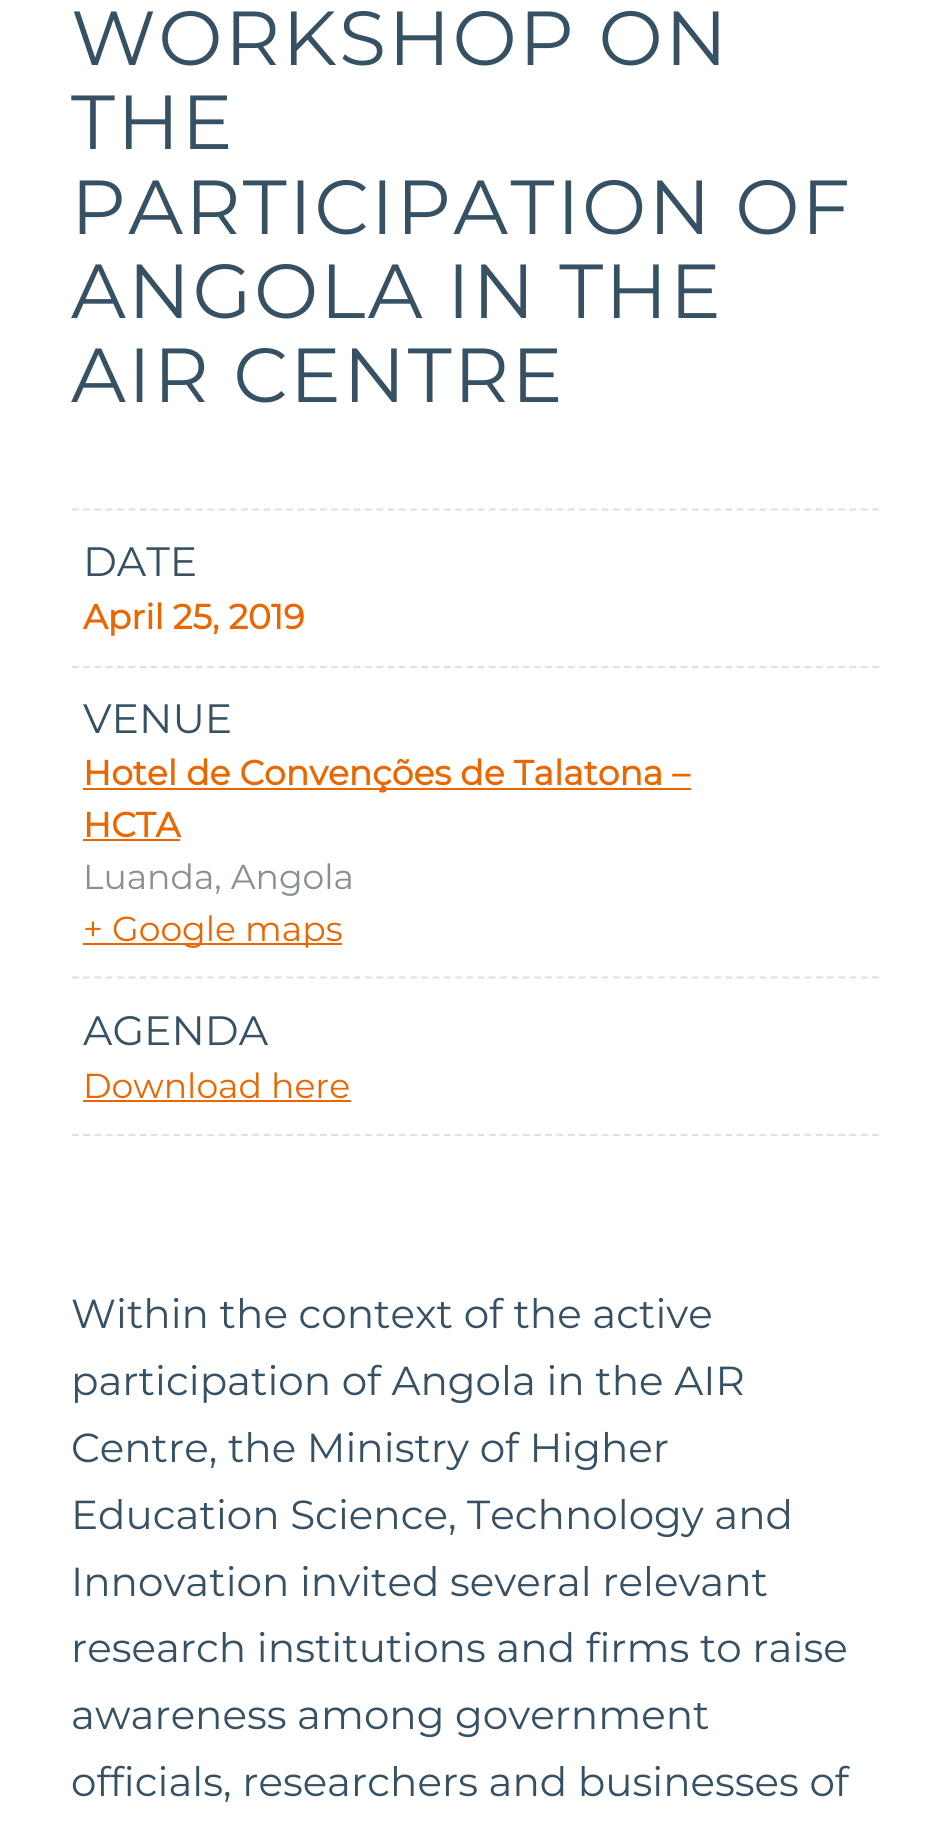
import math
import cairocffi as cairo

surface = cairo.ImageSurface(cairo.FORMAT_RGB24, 951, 1844)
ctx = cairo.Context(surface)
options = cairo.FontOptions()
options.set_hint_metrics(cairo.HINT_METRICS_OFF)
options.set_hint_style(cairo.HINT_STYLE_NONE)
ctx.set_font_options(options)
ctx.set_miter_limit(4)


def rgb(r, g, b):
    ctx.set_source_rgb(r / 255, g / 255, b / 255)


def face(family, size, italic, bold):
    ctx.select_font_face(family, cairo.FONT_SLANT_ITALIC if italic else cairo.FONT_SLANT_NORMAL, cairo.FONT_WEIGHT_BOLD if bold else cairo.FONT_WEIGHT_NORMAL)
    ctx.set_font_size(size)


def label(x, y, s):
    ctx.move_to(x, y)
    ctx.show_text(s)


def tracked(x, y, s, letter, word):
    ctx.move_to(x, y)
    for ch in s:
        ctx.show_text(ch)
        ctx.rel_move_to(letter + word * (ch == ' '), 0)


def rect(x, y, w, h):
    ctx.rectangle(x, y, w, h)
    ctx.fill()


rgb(255, 255, 255)
ctx.paint()
face('Montserrat Thin', 76.5, 0, 0)
rgb(54, 81, 100)
tracked(71, 65, 'WORKSHOP ON', 2.25, 0)
tracked(71, 149, 'THE', 2.25, 0)
tracked(71, 234, 'PARTICIPATION OF', 2.25, 0)
tracked(71, 318, 'ANGOLA IN THE', 2.25, 0)
tracked(71, 402, 'AIR CENTRE', 2.25, 0)
ctx.new_path()
ctx.move_to(72, 509.5)
ctx.line_to(880, 509.5)
rgb(225, 225, 225)
ctx.set_line_width(2.2)
ctx.set_dash([6.75, 4.52])
ctx.stroke()
ctx.new_path()
ctx.move_to(72, 667)
ctx.line_to(880, 667)
ctx.stroke()
face('Montserrat Thin', 41, 0, 0)
rgb(54, 81, 100)
label(83, 576, 'DATE')
face('Montserrat', 34.6, 0, 1)
rgb(236, 102, 0)
label(83, 629, 'April 25, 2019')
ctx.new_path()
ctx.move_to(72, 977.5)
ctx.line_to(880, 977.5)
rgb(225, 225, 225)
ctx.stroke()
face('Montserrat Thin', 41, 0, 0)
rgb(54, 81, 100)
label(83, 733, 'VENUE')
rgb(236, 102, 0)
rect(83, 788, 608, 2)
face('Montserrat', 34.6, 0, 1)
label(83, 785, 'Hotel de Convenções de Talatona –')
label(83, 837, 'HCTA')
rect(83, 839, 97, 2)
face('Montserrat Thin', 34.6, 0, 0)
rgb(136, 144, 149)
label(83, 889, 'Luanda, Angola')
rgb(236, 102, 0)
rect(83, 943, 259, 2)
label(83, 941, '+ Google maps')
ctx.new_path()
ctx.move_to(72, 1135)
ctx.line_to(880, 1135)
rgb(225, 225, 225)
ctx.stroke()
face('Montserrat Thin', 41, 0, 0)
rgb(54, 81, 100)
label(83, 1045, 'AGENDA')
face('Montserrat Thin', 34.6, 0, 0)
rgb(236, 102, 0)
label(83, 1098, 'Download here')
rect(83, 1100, 268, 2)
face('Montserrat Thin', 40.5, 0, 0)
rgb(54, 81, 100)
label(71, 1328, 'Within the context of the active')
label(71, 1395, 'participation of Angola in the AIR')
label(71, 1462, 'Centre, the Ministry of Higher')
label(71, 1529, 'Education Science, Technology and')
label(71, 1596, 'Innovation invited several relevant')
label(71, 1662, 'research institutions and firms to raise')
label(71, 1729, 'awareness among government')
label(71, 1796, 'officials, researchers and businesses of')
surface.write_to_png('render.png')
